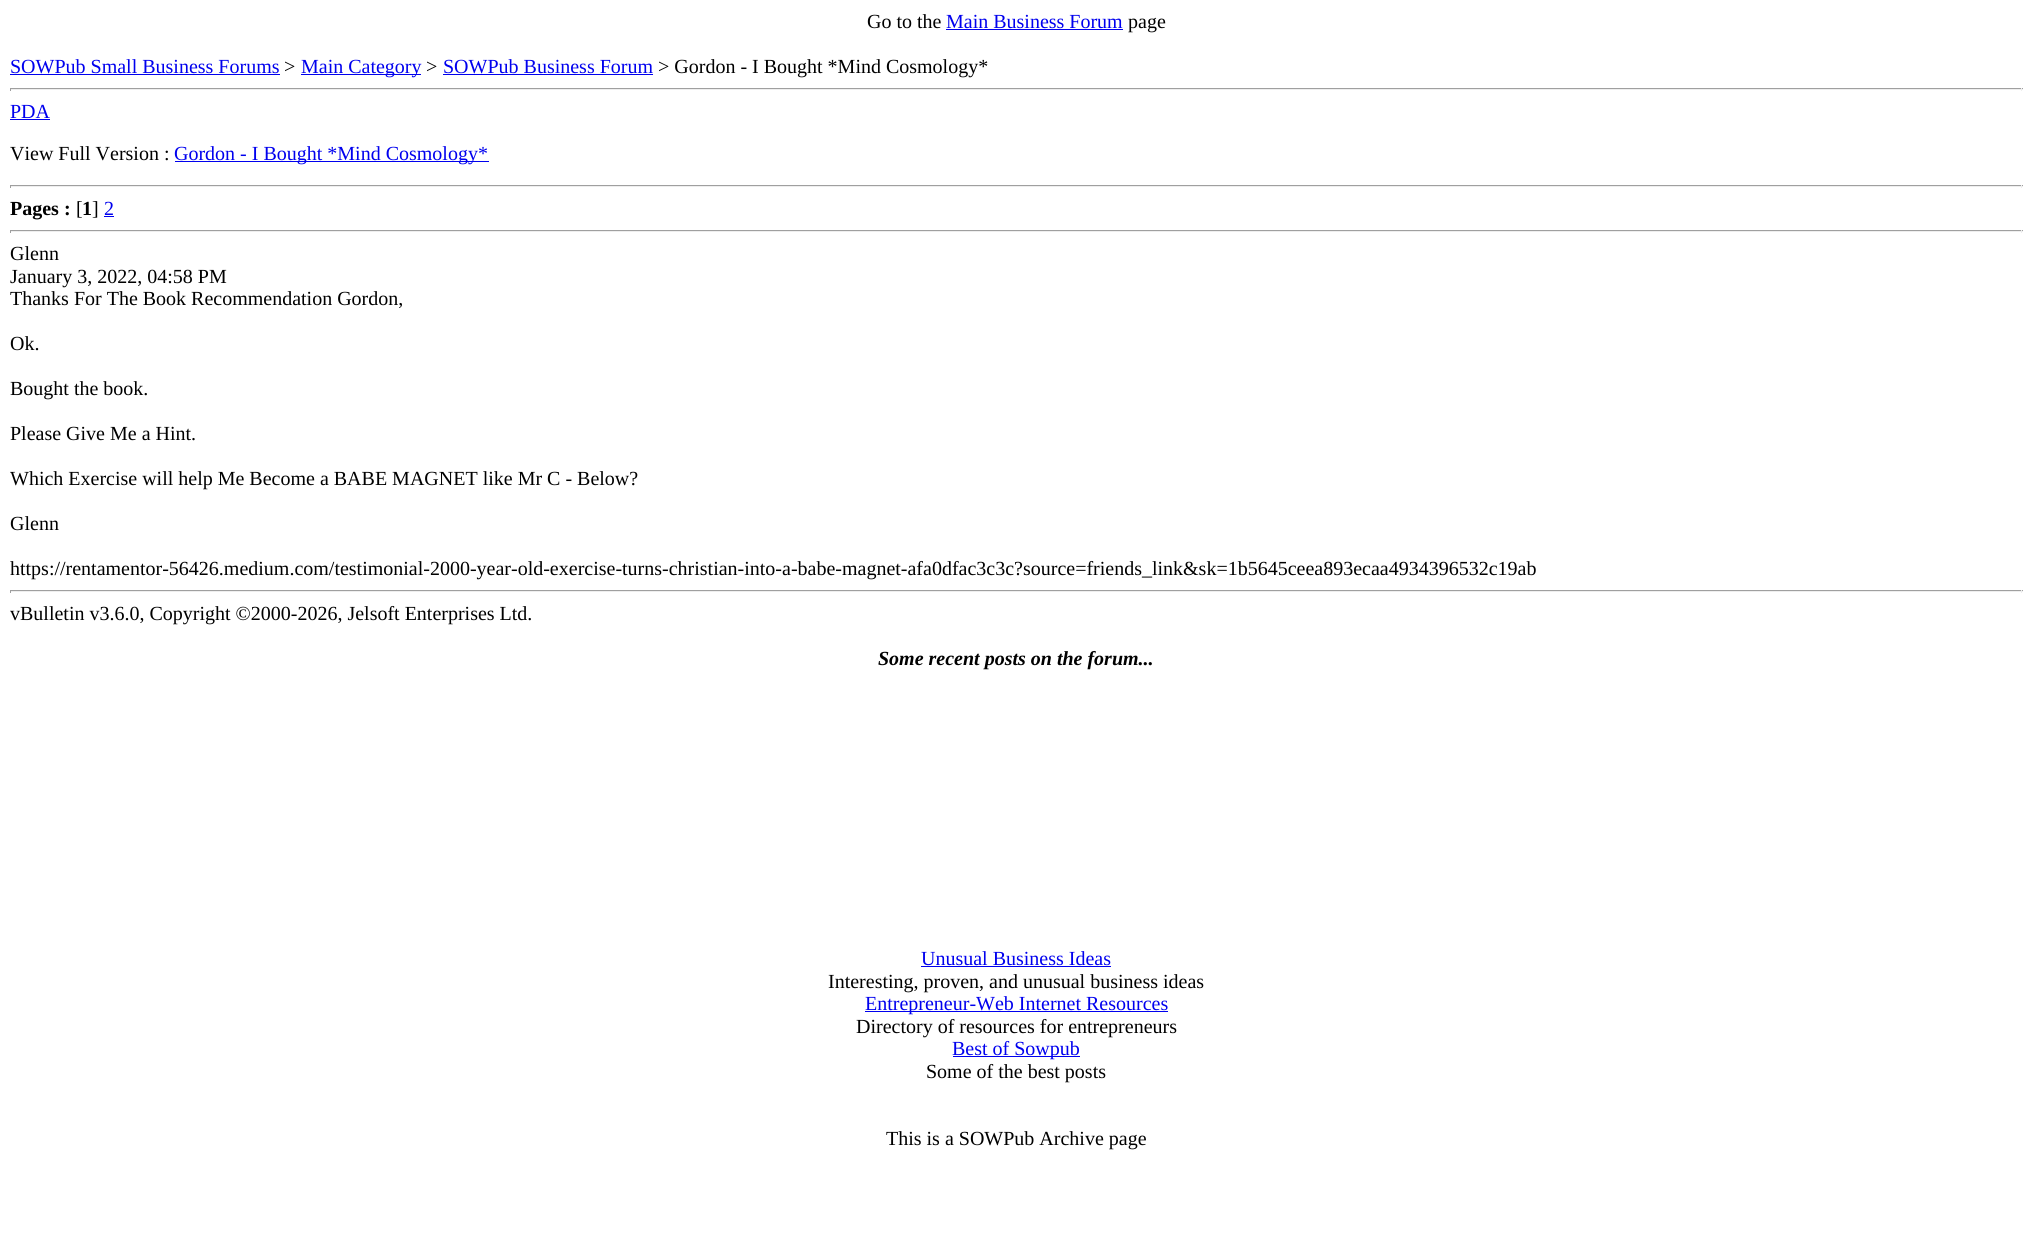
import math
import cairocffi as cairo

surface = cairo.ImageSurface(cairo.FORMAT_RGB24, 2032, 1259)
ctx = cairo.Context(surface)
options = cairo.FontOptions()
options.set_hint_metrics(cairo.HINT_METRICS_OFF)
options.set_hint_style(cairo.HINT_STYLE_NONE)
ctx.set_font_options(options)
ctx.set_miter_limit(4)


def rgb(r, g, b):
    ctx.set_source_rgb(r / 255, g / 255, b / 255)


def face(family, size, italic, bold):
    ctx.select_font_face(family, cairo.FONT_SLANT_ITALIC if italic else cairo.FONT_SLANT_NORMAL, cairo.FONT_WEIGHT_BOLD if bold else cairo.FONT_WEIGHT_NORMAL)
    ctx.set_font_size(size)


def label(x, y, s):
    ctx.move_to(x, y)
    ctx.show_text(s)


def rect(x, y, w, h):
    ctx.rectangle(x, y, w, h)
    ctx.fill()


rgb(255, 255, 255)
ctx.paint()
face('Liberation Serif', 20, 0, 0)
rgb(0, 0, 0)
label(867, 28, 'Go to the')
rgb(0, 0, 238)
label(946, 28, 'Main Business Forum')
rect(946, 29, 177, 1)
rgb(0, 0, 0)
label(1128, 28, 'page')
rgb(0, 0, 238)
label(10, 73, 'SOWPub Small Business Forums')
rect(10, 74, 270, 1)
rgb(0, 0, 0)
label(284, 73, '>')
rgb(0, 0, 238)
rect(301, 74, 120, 1)
label(301, 73, 'Main Category')
rgb(0, 0, 0)
label(426, 73, '>')
rgb(0, 0, 238)
label(443, 73, 'SOWPub Business Forum')
rect(443, 74, 210, 1)
rgb(0, 0, 0)
label(658, 73, '> Gordon - I Bought *Mind Cosmology*')
rgb(159, 159, 159)
rect(10, 88, 2013, 1)
rgb(238, 238, 238)
rect(2021, 88, 1, 3)
rect(10, 89, 2013, 1)
rgb(159, 159, 159)
rect(10, 88, 1, 3)
rgb(0, 0, 238)
label(10, 118, 'PDA')
rect(10, 119, 40, 1)
rgb(0, 0, 0)
label(10, 160, 'View Full Version :')
rgb(0, 0, 238)
rect(175, 161, 314, 1)
label(174, 160, 'Gordon - I Bought *Mind Cosmology*')
rgb(159, 159, 159)
rect(10, 185, 2013, 1)
rgb(238, 238, 238)
rect(2021, 185, 1, 3)
rect(10, 186, 2013, 1)
rgb(159, 159, 159)
rect(10, 185, 1, 3)
face('Liberation Serif', 20, 0, 1)
rgb(0, 0, 0)
label(10, 215, 'Pages :')
face('Liberation Serif', 20, 0, 0)
label(76, 215, '[')
face('Liberation Serif', 20, 0, 1)
label(82, 215, '1')
face('Liberation Serif', 20, 0, 0)
label(92, 215, ']')
rgb(0, 0, 238)
label(104, 215, '2')
rect(104, 216, 10, 1)
rgb(159, 159, 159)
rect(10, 230, 2013, 1)
rgb(238, 238, 238)
rect(2021, 230, 1, 3)
rect(10, 231, 2013, 1)
rgb(159, 159, 159)
rect(10, 230, 1, 3)
rgb(0, 0, 0)
label(10, 260, 'Glenn')
label(10, 283, 'January 3, 2022, 04:58 PM')
label(10, 305, 'Thanks For The Book Recommendation Gordon,')
label(10, 350, 'Ok.')
label(10, 395, 'Bought the book.')
label(10, 440, 'Please Give Me a Hint.')
label(10, 485, 'Which Exercise will help Me Become a BABE MAGNET like Mr C - Below?')
label(10, 530, 'Glenn')
label(10, 575, 'https://rentamentor-56426.medium.com/testimonial-2000-year-old-exercise-turns-christian-into-a-babe-magnet-afa0dfac3c3c?source=friends_link&sk=1b5645ceea893ecaa4934396532c19ab')
rgb(159, 159, 159)
rect(10, 590, 2013, 1)
rgb(238, 238, 238)
rect(2021, 590, 1, 3)
rect(10, 591, 2013, 1)
rgb(159, 159, 159)
rect(10, 590, 1, 3)
rgb(0, 0, 0)
label(10, 620, 'vBulletin v3.6.0, Copyright ©2000-2026, Jelsoft Enterprises Ltd.')
face('Liberation Serif', 20, 1, 1)
label(878, 665, 'Some recent posts on the forum...')
face('Liberation Serif', 20, 0, 0)
rgb(0, 0, 238)
label(921, 965, 'Unusual Business Ideas')
rect(921, 966, 190, 1)
rgb(0, 0, 0)
label(828, 988, 'Interesting, proven, and unusual business ideas')
rgb(0, 0, 238)
rect(865, 1011, 303, 1)
label(865, 1010, 'Entrepreneur-Web Internet Resources')
rgb(0, 0, 0)
label(856, 1033, 'Directory of resources for entrepreneurs')
rgb(0, 0, 238)
rect(953, 1056, 127, 1)
label(952, 1055, 'Best of Sowpub')
rgb(0, 0, 0)
label(926, 1078, 'Some of the best posts')
label(886, 1145, 'This is a SOWPub Archive page')
surface.write_to_png('render.png')
